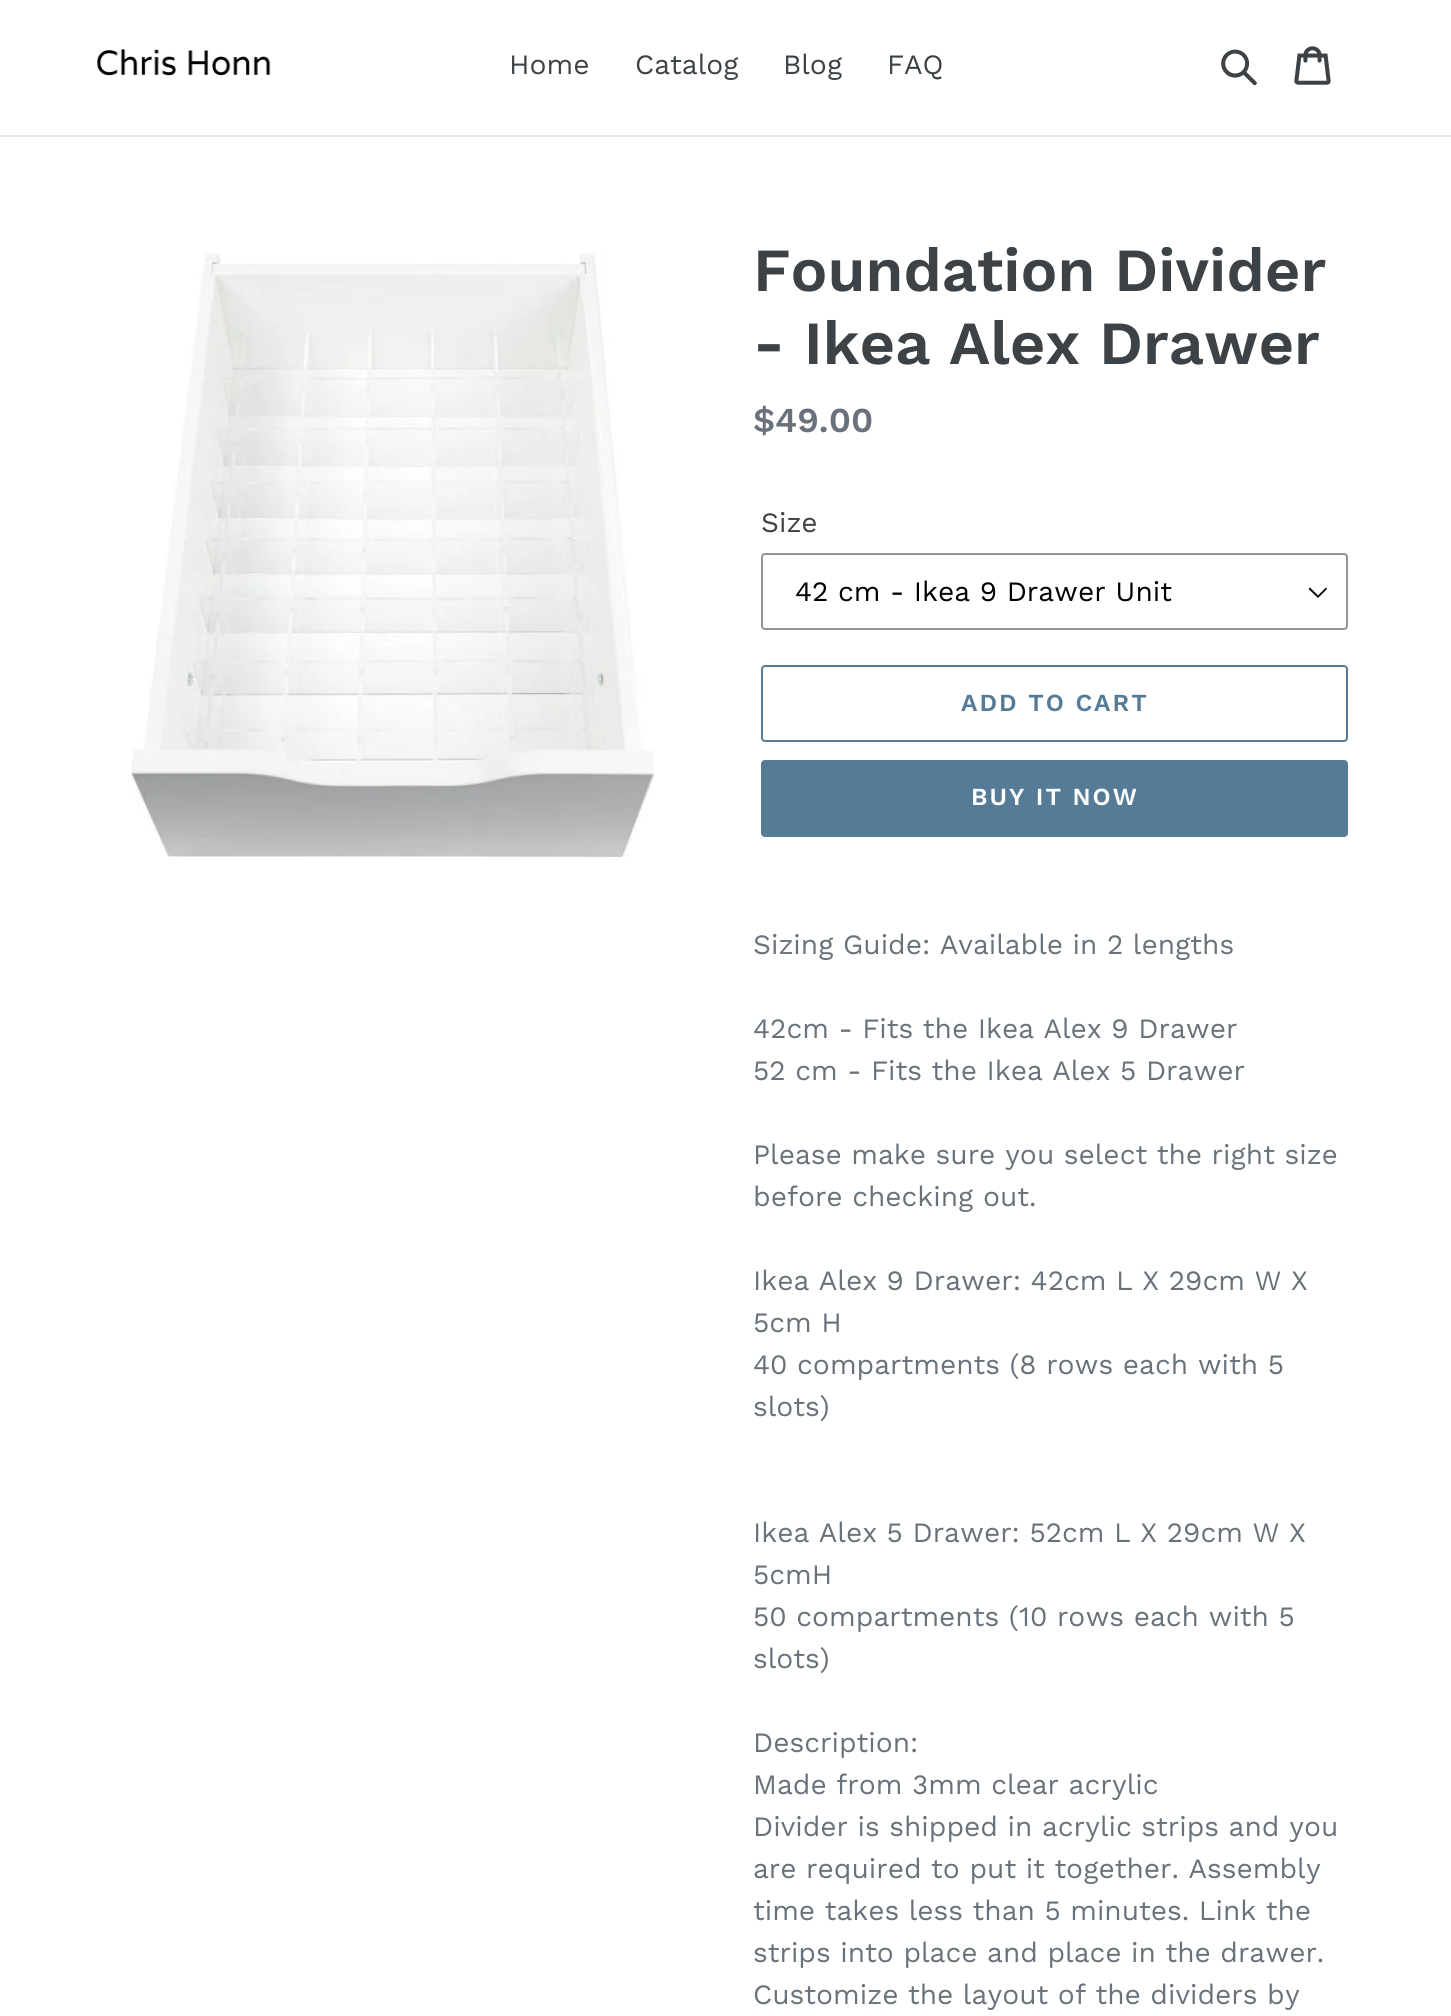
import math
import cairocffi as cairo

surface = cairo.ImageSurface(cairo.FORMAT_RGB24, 1451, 2016)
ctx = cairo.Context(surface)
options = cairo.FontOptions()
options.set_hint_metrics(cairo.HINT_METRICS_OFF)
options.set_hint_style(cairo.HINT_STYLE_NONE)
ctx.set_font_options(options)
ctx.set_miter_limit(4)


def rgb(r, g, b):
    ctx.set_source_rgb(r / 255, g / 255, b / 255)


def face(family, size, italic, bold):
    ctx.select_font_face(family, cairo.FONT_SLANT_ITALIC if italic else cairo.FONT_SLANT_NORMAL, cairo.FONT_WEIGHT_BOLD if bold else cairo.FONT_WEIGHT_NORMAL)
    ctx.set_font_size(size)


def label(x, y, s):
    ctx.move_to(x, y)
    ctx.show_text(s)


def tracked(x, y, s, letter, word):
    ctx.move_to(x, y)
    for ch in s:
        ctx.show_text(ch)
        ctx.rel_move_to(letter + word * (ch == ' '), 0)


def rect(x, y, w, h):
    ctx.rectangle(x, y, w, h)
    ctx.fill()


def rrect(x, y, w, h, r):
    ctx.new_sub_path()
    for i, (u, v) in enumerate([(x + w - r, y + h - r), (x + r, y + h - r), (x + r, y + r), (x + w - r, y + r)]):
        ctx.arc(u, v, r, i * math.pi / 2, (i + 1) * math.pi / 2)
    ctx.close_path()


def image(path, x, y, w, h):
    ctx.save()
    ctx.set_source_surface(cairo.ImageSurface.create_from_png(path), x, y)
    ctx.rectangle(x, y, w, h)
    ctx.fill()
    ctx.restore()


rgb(255, 255, 255)
ctx.paint()
rgb(232, 233, 235)
rect(0, 135, 1451, 2)
image('image0.png', 97, 49, 174, 27)
face('Work Sans', 28, 0, 0)
rgb(61, 66, 70)
label(509, 74, 'Home')
label(635, 74, 'Catalog')
label(783, 74, 'Blog')
label(887, 74, 'FAQ')
image('image1.png', 1221, 49, 36, 37)
image('image2.png', 1294, 46, 37, 39)
image('image3.png', 130, 253, 525, 607)
face('Work Sans SemiBold', 61.25, 0, 0)
label(753, 291, 'Foundation Divider')
label(753, 364, '- Ikea Alex Drawer')
face('Work Sans SemiBold', 35, 0, 0)
rgb(105, 114, 123)
label(753, 432, '$49.00')
face('Work Sans', 28, 0, 0)
rgb(61, 66, 70)
label(761, 532, 'Size')
rgb(0, 0, 0)
ctx.new_path()
ctx.move_to(1318, 598)
ctx.line_to(1308.5, 589)
ctx.line_to(1310, 587.5)
ctx.line_to(1318, 595.5)
ctx.line_to(1326, 587.5)
ctx.line_to(1327, 589)
ctx.close_path()
ctx.fill()
rrect(762, 554, 585, 75, 3)
rgb(148, 148, 148)
ctx.stroke()
rgb(0, 0, 0)
label(795, 601, '42 cm - Ikea 9 Drawer Unit')
rrect(762, 666, 585, 75, 3)
rgb(85, 123, 151)
ctx.stroke()
face('Work Sans SemiBold', 24.5, 0, 0)
tracked(961, 711, 'ADD TO CART', 2, 0)
rrect(761, 760, 587, 77, 4)
ctx.fill()
rgb(255, 255, 255)
tracked(971, 805, 'BUY IT NOW', 2, 0)
face('Work Sans', 28, 0, 0)
rgb(105, 114, 123)
label(753, 954, 'Sizing Guide: Available in 2 lengths')
label(753, 1038, '42cm - Fits the Ikea Alex 9 Drawer')
label(753, 1080, '52 cm - Fits the Ikea Alex 5 Drawer')
label(753, 1164, 'Please make sure you select the right size')
label(753, 1206, 'before checking out.')
label(753, 1290, 'Ikea Alex 9 Drawer: 42cm L X 29cm W X')
label(753, 1332, '5cm H')
label(753, 1374, '40 compartments (8 rows each with 5')
label(753, 1416, 'slots)')
label(753, 1542, 'Ikea Alex 5 Drawer: 52cm L X 29cm W X')
label(753, 1584, '5cmH')
label(753, 1626, '50 compartments (10 rows each with 5')
label(753, 1668, 'slots)')
label(753, 1752, 'Description:')
label(753, 1794, 'Made from 3mm clear acrylic')
label(753, 1836, 'Divider is shipped in acrylic strips and you')
label(753, 1878, 'are required to put it together. Assembly')
label(753, 1920, 'time takes less than 5 minutes. Link the')
label(753, 1962, 'strips into place and place in the drawer.')
label(753, 2004, 'Customize the layout of the dividers by')
surface.write_to_png('render.png')
